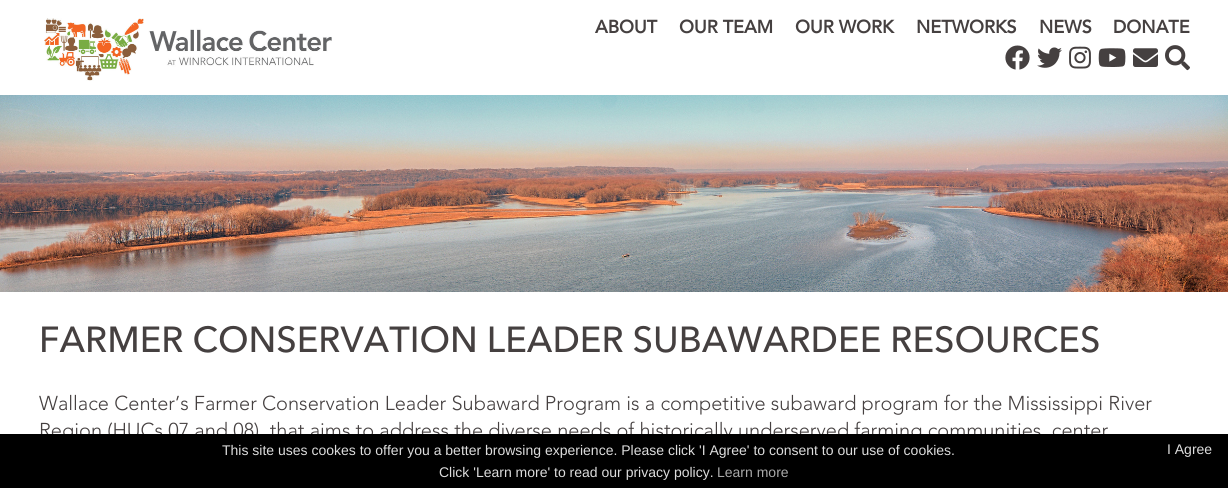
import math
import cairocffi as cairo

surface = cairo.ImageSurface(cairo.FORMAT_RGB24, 1228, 488)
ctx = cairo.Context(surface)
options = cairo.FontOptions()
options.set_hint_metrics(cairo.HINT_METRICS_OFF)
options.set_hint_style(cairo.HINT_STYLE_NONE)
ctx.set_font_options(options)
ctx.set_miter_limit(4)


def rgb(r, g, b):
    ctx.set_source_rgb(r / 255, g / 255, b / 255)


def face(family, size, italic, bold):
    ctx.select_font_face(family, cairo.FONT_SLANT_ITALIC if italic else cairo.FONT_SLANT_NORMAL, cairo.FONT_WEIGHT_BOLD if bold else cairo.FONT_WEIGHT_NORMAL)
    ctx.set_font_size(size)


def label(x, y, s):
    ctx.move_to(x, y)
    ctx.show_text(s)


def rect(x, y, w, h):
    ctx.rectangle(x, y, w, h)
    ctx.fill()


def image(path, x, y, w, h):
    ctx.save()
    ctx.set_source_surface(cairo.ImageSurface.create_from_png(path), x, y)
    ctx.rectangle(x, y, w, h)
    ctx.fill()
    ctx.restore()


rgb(255, 255, 255)
ctx.paint()
image('image0.png', 44, 18, 288, 63)
face('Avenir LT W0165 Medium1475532', 18, 0, 1)
rgb(69, 64, 64)
label(595, 33, 'ABOUT')
label(679, 33, 'OUR TEAM')
label(795, 33, 'OUR WORK')
label(916, 33, 'NETWORKS')
label(1039, 33, 'NEWS')
label(1113, 33, 'DONATE')
image('image1.png', 1005, 45, 25, 25)
image('image2.png', 1037, 47, 25, 21)
image('image3.png', 1069, 46, 22, 23)
image('image4.png', 1098, 48, 28, 19)
image('image5.png', 1133, 48, 25, 19)
image('image6.png', 1165, 45, 25, 26)
image('image7.png', 0, 95, 1228, 197)
face('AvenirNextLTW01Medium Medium', 36, 0, 0)
label(39, 352, 'FARMER CONSERVATION LEADER SUBAWARDEE RESOURCES')
face('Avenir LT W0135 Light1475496 Light', 20, 0, 0)
label(39, 410, 'Wallace Center’s Farmer Conservation Leader Subaward Program is a competitive subaward program for the Mississippi River')
label(39, 437, 'Region (HUCs 07 and 08), that aims to address the diverse needs of historically underserved farming communities, center')
rgb(0, 0, 0)
rect(0, 434, 1228, 54)
face('Liberation Sans', 14, 0, 0)
rgb(221, 221, 221)
label(222, 455, 'This site uses cookes to offer you a better browsing experience. Please click \'I Agree\' to consent to our use of cookies.')
label(1167, 454, 'I Agree')
label(439, 477, 'Click \'Learn more\' to read our privacy policy.')
rgb(170, 170, 170)
label(717, 477, 'Learn more')
surface.write_to_png('render.png')
